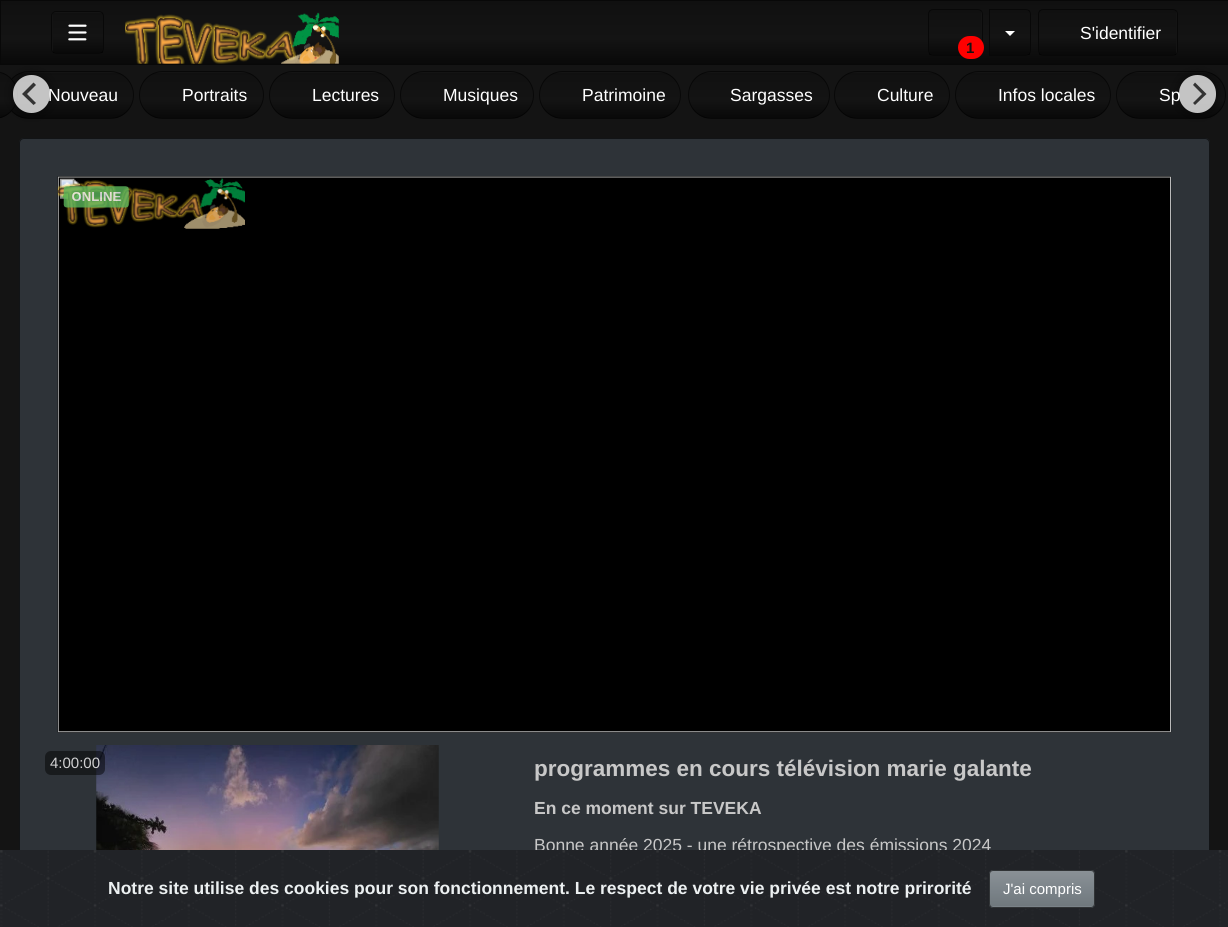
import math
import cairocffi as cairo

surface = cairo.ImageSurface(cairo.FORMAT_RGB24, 1228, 927)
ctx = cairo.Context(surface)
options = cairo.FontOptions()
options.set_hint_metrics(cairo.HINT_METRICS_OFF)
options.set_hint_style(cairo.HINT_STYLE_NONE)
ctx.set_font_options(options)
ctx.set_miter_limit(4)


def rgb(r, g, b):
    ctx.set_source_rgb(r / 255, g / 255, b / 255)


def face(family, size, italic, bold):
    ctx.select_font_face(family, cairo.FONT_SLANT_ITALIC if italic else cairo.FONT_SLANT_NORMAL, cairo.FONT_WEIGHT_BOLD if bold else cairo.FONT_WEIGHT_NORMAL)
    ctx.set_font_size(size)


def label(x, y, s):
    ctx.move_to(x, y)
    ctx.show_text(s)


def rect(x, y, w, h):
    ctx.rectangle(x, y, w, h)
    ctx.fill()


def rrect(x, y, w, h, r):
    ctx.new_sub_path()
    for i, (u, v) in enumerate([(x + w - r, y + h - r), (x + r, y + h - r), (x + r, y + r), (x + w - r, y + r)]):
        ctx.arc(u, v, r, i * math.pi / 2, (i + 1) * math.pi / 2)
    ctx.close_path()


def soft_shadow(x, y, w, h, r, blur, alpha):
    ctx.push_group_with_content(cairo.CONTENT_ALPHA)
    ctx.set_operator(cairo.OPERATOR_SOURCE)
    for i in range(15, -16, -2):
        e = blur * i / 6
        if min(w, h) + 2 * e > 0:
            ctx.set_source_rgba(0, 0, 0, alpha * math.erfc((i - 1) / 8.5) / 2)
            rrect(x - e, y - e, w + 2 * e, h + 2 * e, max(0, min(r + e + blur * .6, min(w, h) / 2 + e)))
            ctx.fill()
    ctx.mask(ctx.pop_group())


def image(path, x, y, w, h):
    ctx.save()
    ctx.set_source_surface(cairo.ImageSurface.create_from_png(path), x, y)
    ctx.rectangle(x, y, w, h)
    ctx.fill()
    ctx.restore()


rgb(20, 20, 20)
ctx.paint()
ctx.save()
rrect(5, 71, 129, 48, 24)
ctx.clip()
gradient = cairo.LinearGradient(69, 72, 69, 118)
gradient.add_color_stop_rgba(0, 0.063, 0.063, 0.063, 1)
gradient.add_color_stop_rgba(0.6, 0.078, 0.078, 0.078, 1)
gradient.add_color_stop_rgba(1, 0.035, 0.035, 0.035, 1)
ctx.set_source(gradient)
rect(11, 73, 122, 45)
ctx.restore()
rrect(5.5, 71.5, 128, 47, 23.5)
ctx.set_source_rgba(0, 0, 0, 0.6)
ctx.set_line_width(1)
ctx.stroke()
rgb(20, 20, 20)
ctx.new_path()
ctx.move_to(0, 71)
ctx.line_to(-6, 71)
ctx.curve_to(7.5, 71, 18, 81.5, 18, 95)
ctx.curve_to(18, 108.5, 7.5, 119, -6, 119)
ctx.line_to(0, 119)
ctx.close_path()
ctx.fill()
ctx.save()
rrect(-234, 71, 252, 48, 24)
ctx.clip()
gradient = cairo.LinearGradient(-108, 72, -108, 118)
gradient.add_color_stop_rgba(0, 0.063, 0.063, 0.063, 1)
gradient.add_color_stop_rgba(0.6, 0.078, 0.078, 0.078, 1)
gradient.add_color_stop_rgba(1, 0.035, 0.035, 0.035, 1)
ctx.set_source(gradient)
rect(0, 73, 16, 45)
ctx.restore()
rrect(-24.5, 71.5, 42, 47, 23.5)
ctx.set_source_rgba(0, 0, 0, 0.6)
ctx.stroke()
ctx.save()
ctx.set_fill_rule(cairo.FILL_RULE_EVEN_ODD)
ctx.new_path()
ctx.move_to(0, 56)
ctx.line_to(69, 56)
ctx.line_to(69, 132)
ctx.line_to(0, 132)
ctx.close_path()
ctx.move_to(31.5, 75)
ctx.curve_to(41.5, 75, 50, 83.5, 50, 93.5)
ctx.line_to(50, 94.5)
ctx.curve_to(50, 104.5, 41.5, 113, 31.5, 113)
ctx.curve_to(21.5, 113, 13, 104.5, 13, 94.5)
ctx.line_to(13, 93.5)
ctx.curve_to(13, 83.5, 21.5, 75, 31.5, 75)
ctx.close_path()
ctx.clip()
rgb(0, 0, 0)
soft_shadow(13, 75, 37, 38, 18.5, 6, 0.5)
ctx.restore()
ctx.save()
rrect(1116, 71, 110, 48, 24)
ctx.clip()
gradient = cairo.LinearGradient(1171, 73, 1171, 118)
gradient.add_color_stop_rgba(0, 0.063, 0.063, 0.063, 1)
gradient.add_color_stop_rgba(0.6, 0.078, 0.078, 0.078, 1)
gradient.add_color_stop_rgba(1, 0.035, 0.035, 0.035, 1)
ctx.set_source(gradient)
rect(1118, 73, 107, 45)
ctx.restore()
rrect(1116.5, 71.5, 109, 47, 23.5)
ctx.stroke()
ctx.save()
ctx.set_fill_rule(cairo.FILL_RULE_EVEN_ODD)
ctx.new_path()
ctx.move_to(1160, 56)
ctx.line_to(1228, 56)
ctx.line_to(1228, 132)
ctx.line_to(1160, 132)
ctx.close_path()
ctx.move_to(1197.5, 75)
ctx.curve_to(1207.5, 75, 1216, 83.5, 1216, 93.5)
ctx.line_to(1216, 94.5)
ctx.curve_to(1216, 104.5, 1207.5, 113, 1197.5, 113)
ctx.curve_to(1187.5, 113, 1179, 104.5, 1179, 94.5)
ctx.line_to(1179, 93.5)
ctx.curve_to(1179, 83.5, 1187.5, 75, 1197.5, 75)
ctx.close_path()
ctx.clip()
rgb(0, 0, 0)
soft_shadow(1179, 75, 37, 38, 18.5, 6, 0.5)
ctx.restore()
gradient = cairo.LinearGradient(614, 1.2, 614, 64)
gradient.add_color_stop_rgba(0, 0.063, 0.063, 0.063, 1)
gradient.add_color_stop_rgba(0.6, 0.078, 0.078, 0.078, 1)
gradient.add_color_stop_rgba(1, 0.035, 0.035, 0.035, 1)
ctx.set_source(gradient)
rect(1, 1, 1227, 63)
ctx.rectangle(0.5, 0.5, 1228, 64)
rgb(8, 8, 8)
ctx.stroke()
rgb(20, 20, 20)
rrect(51, 11, 53, 43, 5)
ctx.fill()
gradient = cairo.LinearGradient(78, 12, 78, 53)
gradient.add_color_stop_rgba(0, 0.063, 0.063, 0.063, 1)
gradient.add_color_stop_rgba(0.6, 0.078, 0.078, 0.078, 1)
gradient.add_color_stop_rgba(1, 0.035, 0.035, 0.035, 1)
ctx.set_source(gradient)
rect(53, 13, 50, 40)
rrect(51.5, 11.5, 52, 42, 4.5)
ctx.set_source_rgba(0, 0, 0, 0.6)
ctx.stroke()
image('image0.png', 68, 24, 19, 17)
image('image1.png', 125, 12, 214, 52)
rgb(20, 20, 20)
ctx.new_path()
ctx.move_to(989, 9)
ctx.line_to(1026, 9)
ctx.curve_to(1029, 9, 1031, 11, 1031, 14)
ctx.line_to(1031, 51)
ctx.curve_to(1031, 54, 1029, 56, 1026, 56)
ctx.line_to(989, 56)
ctx.close_path()
ctx.fill()
gradient = cairo.LinearGradient(1010, 10, 1010, 55)
gradient.add_color_stop_rgba(0, 0.063, 0.063, 0.063, 1)
gradient.add_color_stop_rgba(0.6, 0.078, 0.078, 0.078, 1)
gradient.add_color_stop_rgba(1, 0.035, 0.035, 0.035, 1)
ctx.set_source(gradient)
rect(990, 10, 40, 45)
ctx.new_path()
ctx.move_to(989.5, 9.5)
ctx.line_to(1026, 9.5)
ctx.curve_to(1028.5, 9.5, 1030.5, 11.5, 1030.5, 14)
ctx.line_to(1030.5, 51)
ctx.curve_to(1030.5, 53.5, 1028.5, 55.5, 1026, 55.5)
ctx.line_to(989.5, 55.5)
ctx.close_path()
ctx.set_source_rgba(0, 0, 0, 0.6)
ctx.stroke()
rgb(255, 255, 255)
ctx.new_path()
ctx.move_to(1005, 31)
ctx.line_to(1015, 31)
ctx.line_to(1010, 36)
ctx.close_path()
ctx.fill()
rgb(20, 20, 20)
rrect(1038, 9, 140, 47, 5)
ctx.fill()
gradient = cairo.LinearGradient(1108, 10, 1108, 55)
gradient.add_color_stop_rgba(0, 0.063, 0.063, 0.063, 1)
gradient.add_color_stop_rgba(0.6, 0.078, 0.078, 0.078, 1)
gradient.add_color_stop_rgba(1, 0.035, 0.035, 0.035, 1)
ctx.set_source(gradient)
rect(1039, 10, 137, 45)
rrect(1038.5, 9.5, 139, 46, 4.5)
ctx.set_source_rgba(0, 0, 0, 0.6)
ctx.stroke()
face('Liberation Sans', 17.5, 0, 0)
rgb(255, 255, 255)
label(1080, 39, 'S\'identifier')
rgb(20, 20, 20)
rrect(928, 9, 55, 47, 5)
ctx.fill()
gradient = cairo.LinearGradient(955, 10, 955, 55)
gradient.add_color_stop_rgba(0, 0.063, 0.063, 0.063, 1)
gradient.add_color_stop_rgba(0.6, 0.078, 0.078, 0.078, 1)
gradient.add_color_stop_rgba(1, 0.035, 0.035, 0.035, 1)
ctx.set_source(gradient)
rect(929, 10, 52, 45)
rrect(928.5, 9.5, 54, 46, 4.5)
ctx.set_source_rgba(0, 0, 0, 0.6)
ctx.stroke()
rgb(255, 0, 0)
rrect(958, 36, 26, 23, 11.5)
ctx.fill()
face('Liberation Sans', 15, 0, 1)
rgb(20, 20, 20)
label(966, 53, '1')
face('Liberation Sans', 17.5, 0, 0)
rgb(255, 255, 255)
label(48, 101, 'Nouveau')
ctx.set_source_rgba(1, 1, 1, 0.75)
rrect(13, 75, 37, 38, 18.5)
ctx.fill()
rgb(51, 51, 51)
ctx.new_path()
ctx.move_to(22, 94)
ctx.line_to(33.5, 105)
ctx.line_to(36, 103)
ctx.line_to(27, 94)
ctx.line_to(36, 85)
ctx.line_to(33.5, 82.5)
ctx.close_path()
ctx.fill()
ctx.save()
rrect(139, 71, 125, 48, 24)
ctx.clip()
gradient = cairo.LinearGradient(202, 72, 202, 118)
gradient.add_color_stop_rgba(0, 0.063, 0.063, 0.063, 1)
gradient.add_color_stop_rgba(0.6, 0.078, 0.078, 0.078, 1)
gradient.add_color_stop_rgba(1, 0.035, 0.035, 0.035, 1)
ctx.set_source(gradient)
rect(140, 73, 123, 45)
ctx.restore()
rrect(139.5, 71.5, 124, 47, 23.5)
ctx.set_source_rgba(0, 0, 0, 0.6)
ctx.stroke()
rgb(255, 255, 255)
label(182, 101, 'Portraits')
ctx.save()
rrect(269, 71, 126, 48, 24)
ctx.clip()
gradient = cairo.LinearGradient(332, 72, 332, 118)
gradient.add_color_stop_rgba(0, 0.063, 0.063, 0.063, 1)
gradient.add_color_stop_rgba(0.6, 0.078, 0.078, 0.078, 1)
gradient.add_color_stop_rgba(1, 0.035, 0.035, 0.035, 1)
ctx.set_source(gradient)
rect(270, 73, 124, 45)
ctx.restore()
rrect(269.5, 71.5, 125, 47, 23.5)
ctx.set_source_rgba(0, 0, 0, 0.6)
ctx.stroke()
rgb(255, 255, 255)
label(312, 101, 'Lectures')
ctx.save()
rrect(400, 71, 134, 48, 24)
ctx.clip()
gradient = cairo.LinearGradient(467, 72, 467, 118)
gradient.add_color_stop_rgba(0, 0.063, 0.063, 0.063, 1)
gradient.add_color_stop_rgba(0.6, 0.078, 0.078, 0.078, 1)
gradient.add_color_stop_rgba(1, 0.035, 0.035, 0.035, 1)
ctx.set_source(gradient)
rect(401, 73, 132, 45)
ctx.restore()
rrect(400.5, 71.5, 133, 47, 23.5)
ctx.set_source_rgba(0, 0, 0, 0.6)
ctx.stroke()
rgb(255, 255, 255)
label(443, 101, 'Musiques')
ctx.save()
rrect(539, 71, 142, 48, 24)
ctx.clip()
gradient = cairo.LinearGradient(611, 72, 611, 118)
gradient.add_color_stop_rgba(0, 0.063, 0.063, 0.063, 1)
gradient.add_color_stop_rgba(0.6, 0.078, 0.078, 0.078, 1)
gradient.add_color_stop_rgba(1, 0.035, 0.035, 0.035, 1)
ctx.set_source(gradient)
rect(540, 73, 140, 45)
ctx.restore()
rrect(539.5, 71.5, 141, 47, 23.5)
ctx.set_source_rgba(0, 0, 0, 0.6)
ctx.stroke()
rgb(255, 255, 255)
label(582, 101, 'Patrimoine')
ctx.save()
rrect(688, 71, 142, 48, 24)
ctx.clip()
gradient = cairo.LinearGradient(758, 72, 758, 118)
gradient.add_color_stop_rgba(0, 0.063, 0.063, 0.063, 1)
gradient.add_color_stop_rgba(0.6, 0.078, 0.078, 0.078, 1)
gradient.add_color_stop_rgba(1, 0.035, 0.035, 0.035, 1)
ctx.set_source(gradient)
rect(689, 73, 140, 45)
ctx.restore()
rrect(688.5, 71.5, 141, 47, 23.5)
ctx.set_source_rgba(0, 0, 0, 0.6)
ctx.stroke()
rgb(255, 255, 255)
label(730, 101, 'Sargasses')
ctx.save()
rrect(834, 71, 116, 48, 24)
ctx.clip()
gradient = cairo.LinearGradient(892, 72, 892, 118)
gradient.add_color_stop_rgba(0, 0.063, 0.063, 0.063, 1)
gradient.add_color_stop_rgba(0.6, 0.078, 0.078, 0.078, 1)
gradient.add_color_stop_rgba(1, 0.035, 0.035, 0.035, 1)
ctx.set_source(gradient)
rect(835, 73, 114, 45)
ctx.restore()
rrect(834.5, 71.5, 115, 47, 23.5)
ctx.set_source_rgba(0, 0, 0, 0.6)
ctx.stroke()
rgb(255, 255, 255)
label(877, 101, 'Culture')
ctx.save()
rrect(955, 71, 156, 48, 24)
ctx.clip()
gradient = cairo.LinearGradient(1033, 72, 1033, 118)
gradient.add_color_stop_rgba(0, 0.063, 0.063, 0.063, 1)
gradient.add_color_stop_rgba(0.6, 0.078, 0.078, 0.078, 1)
gradient.add_color_stop_rgba(1, 0.035, 0.035, 0.035, 1)
ctx.set_source(gradient)
rect(956, 73, 154, 45)
ctx.restore()
rrect(955.5, 71.5, 155, 47, 23.5)
ctx.set_source_rgba(0, 0, 0, 0.6)
ctx.stroke()
rgb(255, 255, 255)
label(998, 101, 'Infos locales')
label(1159, 101, 'Sp')
ctx.set_source_rgba(1, 1, 1, 0.75)
rrect(1179, 75, 37, 38, 18.5)
ctx.fill()
rgb(51, 51, 51)
ctx.new_path()
ctx.move_to(1206.5, 94)
ctx.line_to(1195, 82.5)
ctx.line_to(1193, 85)
ctx.line_to(1202, 94)
ctx.line_to(1193, 103)
ctx.line_to(1195, 105)
ctx.close_path()
ctx.fill()
rgb(46, 51, 56)
rrect(19, 138, 1191, 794, 5)
ctx.fill()
rrect(19.5, 138.5, 1190, 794, 4.5)
ctx.set_source_rgba(0, 0, 0, 0.6)
ctx.stroke()
rgb(73, 76, 78)
rect(58, 176, 1113, 557)
image('image2.png', 57, 176, 1115, 557)
image('image3.png', 96, 745, 343, 105)
ctx.set_source_rgba(0, 0, 0, 0.48)
rrect(45, 751, 60, 24, 6)
ctx.fill()
face('Liberation Sans', 15, 0, 0)
rgb(209, 209, 210)
label(50, 768, '4:00:00')
face('Liberation Sans', 22.5, 0, 1)
rgb(200, 200, 200)
label(534, 776, 'programmes en cours télévision marie galante')
face('Liberation Sans', 17.5, 0, 1)
label(534, 814, 'En ce moment sur TEVEKA')
face('Liberation Sans', 17.5, 0, 0)
label(534, 851, 'Bonne année 2025 - une rétrospective des émissions 2024')
image('image4.png', 0, 850, 1228, 77)
face('Liberation Sans', 17.5, 0, 1)
rgb(236, 240, 241)
label(108, 894, 'Notre site utilise des cookies pour son fonctionnement. Le respect de votre vie privée est notre prirorité')
rgb(122, 130, 136)
rrect(989, 870, 106, 38, 4)
ctx.fill()
gradient = cairo.LinearGradient(1042, 871, 1042, 906)
gradient.add_color_stop_rgba(0, 0.541, 0.569, 0.588, 1)
gradient.add_color_stop_rgba(0.6, 0.478, 0.51, 0.533, 1)
gradient.add_color_stop_rgba(1, 0.439, 0.471, 0.49, 1)
ctx.set_source(gradient)
rect(990, 871, 104, 35)
rrect(989.5, 870.5, 105, 37, 3.5)
ctx.set_source_rgba(0, 0, 0, 0.6)
ctx.stroke()
face('Liberation Sans', 15, 0, 0)
rgb(255, 255, 255)
label(1003, 894, 'J\'ai compris')
surface.write_to_png('render.png')
